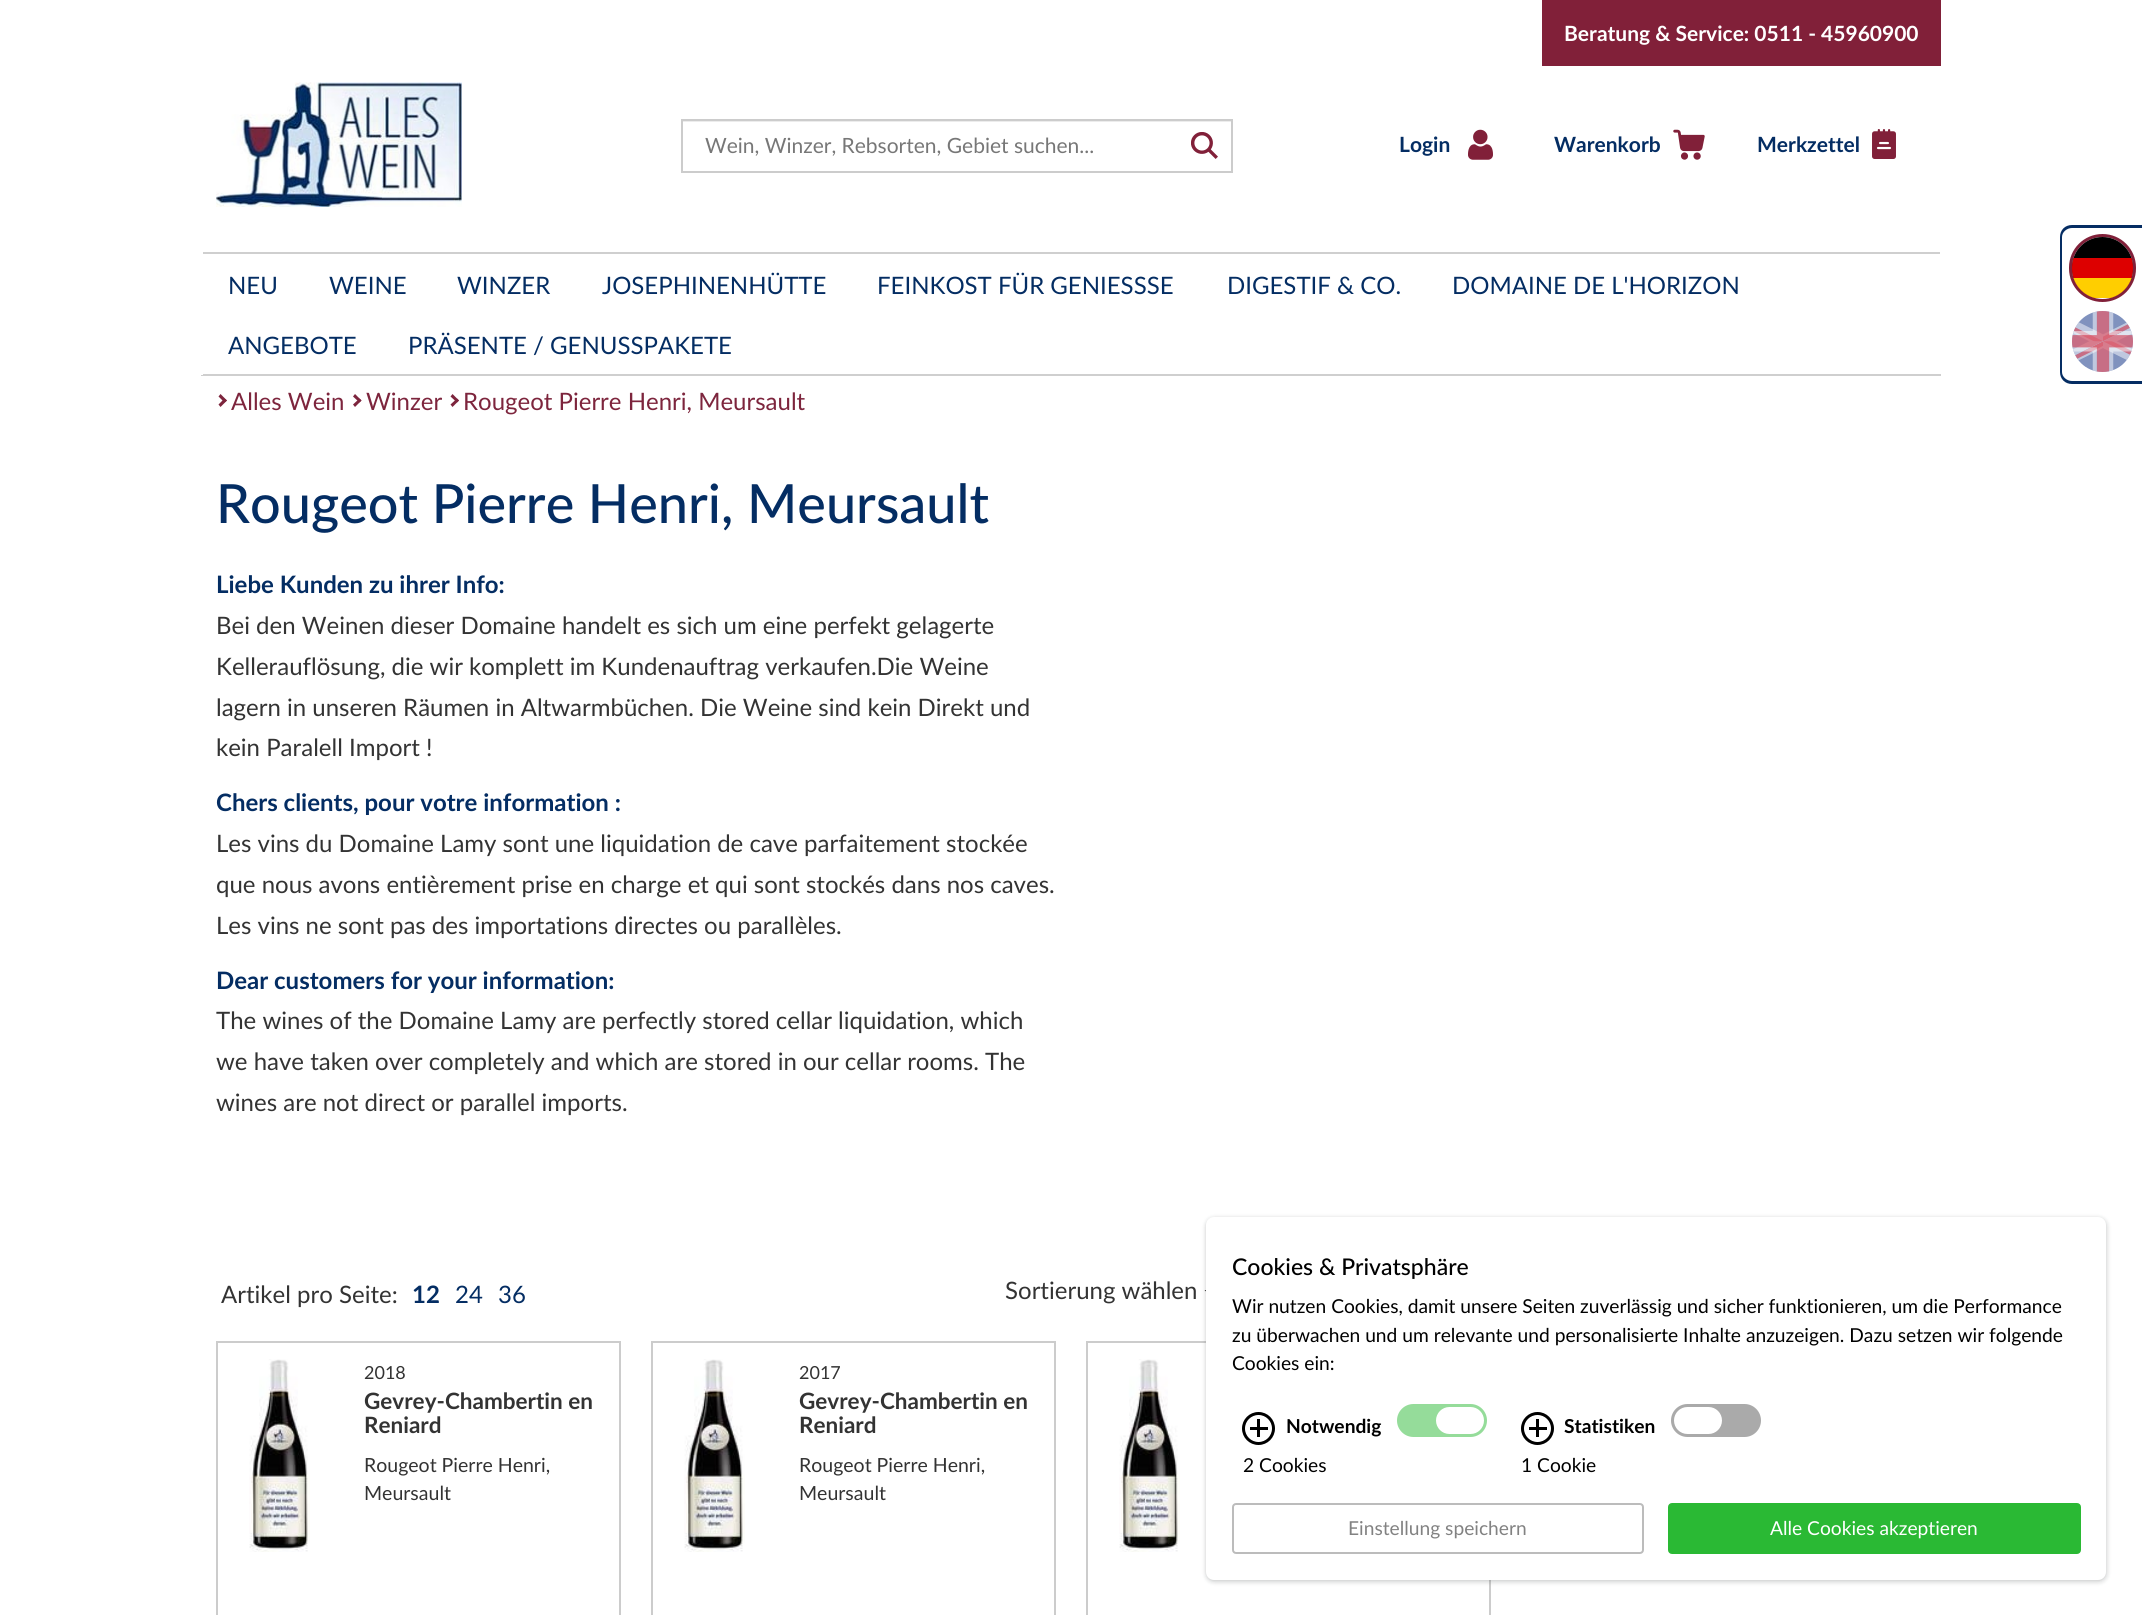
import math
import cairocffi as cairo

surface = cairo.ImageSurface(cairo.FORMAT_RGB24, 2142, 1615)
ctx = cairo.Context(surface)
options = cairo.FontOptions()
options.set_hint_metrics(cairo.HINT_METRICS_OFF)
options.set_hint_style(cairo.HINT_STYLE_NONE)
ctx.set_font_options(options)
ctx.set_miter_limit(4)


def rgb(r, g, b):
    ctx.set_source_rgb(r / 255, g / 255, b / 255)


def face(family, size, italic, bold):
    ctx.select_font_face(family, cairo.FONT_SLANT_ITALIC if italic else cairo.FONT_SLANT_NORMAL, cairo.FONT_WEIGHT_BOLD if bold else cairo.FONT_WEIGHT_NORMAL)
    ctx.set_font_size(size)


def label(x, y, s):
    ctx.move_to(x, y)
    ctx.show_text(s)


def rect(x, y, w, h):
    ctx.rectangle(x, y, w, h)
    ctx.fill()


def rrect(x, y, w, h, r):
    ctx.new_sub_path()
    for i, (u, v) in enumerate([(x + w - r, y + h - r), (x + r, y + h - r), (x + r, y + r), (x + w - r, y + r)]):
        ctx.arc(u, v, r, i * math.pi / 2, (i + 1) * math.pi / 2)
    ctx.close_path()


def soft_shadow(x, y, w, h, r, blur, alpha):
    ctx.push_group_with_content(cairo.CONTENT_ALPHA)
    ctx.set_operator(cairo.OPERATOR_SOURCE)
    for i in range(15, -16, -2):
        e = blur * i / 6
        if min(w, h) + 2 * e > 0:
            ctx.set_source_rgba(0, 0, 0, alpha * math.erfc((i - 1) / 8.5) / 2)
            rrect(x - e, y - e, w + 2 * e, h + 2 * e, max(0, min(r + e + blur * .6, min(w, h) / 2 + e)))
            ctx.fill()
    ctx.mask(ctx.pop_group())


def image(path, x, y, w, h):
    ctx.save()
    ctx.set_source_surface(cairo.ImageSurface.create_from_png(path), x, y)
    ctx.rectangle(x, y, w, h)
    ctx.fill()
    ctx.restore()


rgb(255, 255, 255)
ctx.paint()
rgb(129, 32, 57)
rect(1542, 0, 399, 66)
face('Lato', 21, 0, 1)
rgb(255, 255, 255)
label(1564, 41, 'Beratung & Service: 0511 - 45960900')
image('image0.png', 216, 82, 246, 125)
rgb(236, 236, 236)
rect(683, 121, 549, 1)
ctx.rectangle(682, 120, 550, 52)
rgb(204, 204, 204)
ctx.stroke()
face('Lato', 21, 0, 0)
rgb(119, 119, 119)
label(705, 153, 'Wein, Winzer, Rebsorten, Gebiet suchen...')
image('image1.png', 1191, 132, 27, 27)
face('Lato', 21, 0, 1)
rgb(4, 45, 99)
label(1399, 152, 'Login')
image('image2.png', 1468, 129, 25, 31)
label(1554, 152, 'Warenkorb')
image('image3.png', 1673, 129, 32, 31)
label(1757, 152, 'Merkzettel')
image('image4.png', 1872, 129, 24, 30)
rgb(207, 207, 207)
rect(201, 252, 1740, 2)
rgb(255, 255, 255)
rect(1940, 252, 1, 2)
rgb(207, 207, 207)
rect(201, 374, 1740, 2)
rgb(255, 255, 255)
rect(201, 252, 2, 123)
face('Lato', 24, 0, 0)
rgb(4, 45, 99)
label(228, 294, 'NEU')
label(329, 294, 'WEINE')
label(457, 294, 'WINZER')
label(602, 294, 'JOSEPHINENHÜTTE')
label(877, 294, 'FEINKOST FÜR GENIESSSE')
label(1227, 294, 'DIGESTIF & CO.')
label(1452, 294, 'DOMAINE DE L\'HORIZON')
label(228, 354, 'ANGEBOTE')
label(408, 354, 'PRÄSENTE / GENUSSPAKETE')
rgb(125, 37, 61)
ctx.new_path()
ctx.move_to(220.5, 394)
ctx.line_to(227, 400.5)
ctx.line_to(224.5, 402.5)
ctx.line_to(218.5, 396.5)
ctx.close_path()
ctx.fill()
ctx.new_path()
ctx.move_to(224.5, 398.5)
ctx.line_to(227, 400.5)
ctx.line_to(220.5, 407)
ctx.line_to(218.5, 404.5)
ctx.close_path()
ctx.fill()
label(231, 410, 'Alles Wein')
ctx.new_path()
ctx.move_to(355, 394)
ctx.line_to(361.5, 400.5)
ctx.line_to(359.5, 402.5)
ctx.line_to(353, 396.5)
ctx.close_path()
ctx.fill()
ctx.new_path()
ctx.move_to(359.5, 398.5)
ctx.line_to(361.5, 400.5)
ctx.line_to(355, 407)
ctx.line_to(353, 404.5)
ctx.close_path()
ctx.fill()
label(366, 410, 'Winzer')
ctx.new_path()
ctx.move_to(452.5, 394)
ctx.line_to(459, 400.5)
ctx.line_to(457, 402.5)
ctx.line_to(450.5, 396.5)
ctx.close_path()
ctx.fill()
ctx.new_path()
ctx.move_to(457, 398.5)
ctx.line_to(459, 400.5)
ctx.line_to(452.5, 407)
ctx.line_to(450.5, 404.5)
ctx.close_path()
ctx.fill()
label(463, 410, 'Rougeot Pierre Henri, Meursault')
face('Lato Medium', 54, 0, 0)
rgb(4, 45, 99)
label(216, 523, 'Rougeot Pierre Henri, Meursault')
face('Lato', 24, 0, 1)
label(216, 593, 'Liebe Kunden zu ihrer Info:')
face('Lato', 24, 0, 0)
rgb(51, 51, 51)
label(216, 634, 'Bei den Weinen dieser Domaine handelt es sich um eine perfekt gelagerte')
label(216, 675, 'Kellerauflösung, die wir komplett im Kundenauftrag verkaufen.Die Weine')
label(216, 716, 'lagern in unseren Räumen in Altwarmbüchen. Die Weine sind kein Direkt und')
label(216, 756, 'kein Paralell Import !')
face('Lato', 24, 0, 1)
rgb(4, 45, 99)
label(216, 811, 'Chers clients, pour votre information :')
face('Lato', 24, 0, 0)
rgb(51, 51, 51)
label(216, 852, 'Les vins du Domaine Lamy sont une liquidation de cave parfaitement stockée')
label(216, 893, 'que nous avons entièrement prise en charge et qui sont stockés dans nos caves.')
label(216, 934, 'Les vins ne sont pas des importations directes ou parallèles.')
face('Lato', 24, 0, 1)
rgb(4, 45, 99)
label(216, 989, 'Dear customers for your information:')
face('Lato', 24, 0, 0)
rgb(51, 51, 51)
label(216, 1029, 'The wines of the Domaine Lamy are perfectly stored cellar liquidation, which')
label(216, 1070, 'we have taken over completely and which are stored in our cellar rooms. The')
label(216, 1111, 'wines are not direct or parallel imports.')
label(221, 1303, 'Artikel pro Seite:')
face('Lato', 24, 0, 1)
rgb(4, 45, 99)
label(412, 1303, '12')
face('Lato', 24, 0, 0)
label(455, 1303, '24')
label(498, 1303, '36')
rgb(51, 51, 51)
label(1005, 1299, 'Sortierung wählen')
ctx.new_path()
ctx.move_to(1204.5, 1290)
ctx.line_to(1216.5, 1290)
ctx.line_to(1210.5, 1296)
ctx.close_path()
ctx.fill()
ctx.rectangle(217, 1342, 403, 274)
rgb(204, 204, 204)
ctx.stroke()
image('image5.png', 249, 1359, 61, 193)
face('Lato', 18, 0, 0)
rgb(51, 51, 51)
label(364, 1379, '2018')
face('Lato', 22.5, 0, 1)
label(364, 1409, 'Gevrey-Chambertin en')
label(364, 1433, 'Reniard')
face('Lato', 19.5, 0, 0)
label(364, 1472, 'Rougeot Pierre Henri,')
label(364, 1500, 'Meursault')
ctx.rectangle(652, 1342, 403, 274)
rgb(204, 204, 204)
ctx.stroke()
image('image6.png', 684, 1359, 61, 193)
face('Lato', 18, 0, 0)
rgb(51, 51, 51)
label(799, 1379, '2017')
face('Lato', 22.5, 0, 1)
label(799, 1409, 'Gevrey-Chambertin en')
label(799, 1433, 'Reniard')
face('Lato', 19.5, 0, 0)
label(799, 1472, 'Rougeot Pierre Henri,')
label(799, 1500, 'Meursault')
ctx.rectangle(1087, 1342, 403, 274)
rgb(204, 204, 204)
ctx.stroke()
image('image5.png', 1119, 1359, 61, 193)
rgb(5, 45, 99)
ctx.set_fill_rule(cairo.FILL_RULE_EVEN_ODD)
ctx.new_path()
ctx.move_to(2072, 225)
ctx.line_to(2142, 225)
ctx.line_to(2142, 384)
ctx.line_to(2072, 384)
ctx.curve_to(2065, 384, 2060, 379, 2060, 372)
ctx.line_to(2060, 237)
ctx.curve_to(2060, 230, 2065, 225, 2072, 225)
ctx.close_path()
ctx.move_to(2072, 228)
ctx.line_to(2142, 228)
ctx.line_to(2142, 381)
ctx.line_to(2072, 381)
ctx.curve_to(2067, 381, 2062, 377, 2062, 372)
ctx.line_to(2062, 237)
ctx.curve_to(2062, 232, 2067, 228, 2072, 228)
ctx.close_path()
ctx.fill()
rrect(2070.5, 235.5, 64, 65, 32)
rgb(129, 32, 57)
ctx.set_line_width(3)
ctx.stroke()
ctx.save()
ctx.set_fill_rule(cairo.FILL_RULE_WINDING)
rrect(2072, 237, 61, 62, 30.5)
ctx.clip()
rgb(0, 0, 0)
ctx.new_path()
ctx.move_to(2102.5, 237)
ctx.curve_to(2119.5, 237, 2133, 250.5, 2133, 267.5)
ctx.line_to(2133, 298)
ctx.line_to(2072, 298)
ctx.line_to(2072, 267.5)
ctx.curve_to(2072, 250.5, 2085.5, 237, 2102.5, 237)
ctx.close_path()
ctx.fill()
rgb(221, 0, 0)
rect(2072, 258, 61, 40)
rgb(255, 206, 0)
rect(2073, 278, 59, 20)
ctx.restore()
image('image7.png', 2072, 311, 61, 61)
rgb(60, 64, 67)
soft_shadow(1205, 1217, 903, 366, 9, 2, 0.16)
soft_shadow(1206, 1218, 900, 363, 8, 1, 0.08)
rgb(255, 255, 255)
rrect(1206, 1217, 900, 363, 8)
ctx.fill()
face('Lato Medium', 23, 0, 0)
rgb(0, 0, 0)
label(1232, 1275, 'Cookies & Privatsphäre')
face('Lato', 19.2, 0, 0)
label(1232, 1313, 'Wir nutzen Cookies, damit unsere Seiten zuverlässig und sicher funktionieren, um die Performance')
label(1232, 1342, 'zu überwachen und um relevante und personalisierte Inhalte anzuzeigen. Dazu setzen wir folgende')
label(1232, 1370, 'Cookies ein:')
ctx.new_path()
ctx.arc(1258.5, 1428.5, 15, 0, 2 * math.pi)
ctx.stroke()
rect(1257, 1419, 3, 18)
rect(1250, 1427, 18, 3)
face('Lato', 19.2, 0, 1)
label(1286, 1433, 'Notwendig')
rgb(149, 220, 154)
rrect(1397, 1404, 90, 33, 16.5)
ctx.fill()
rgb(255, 255, 255)
rrect(1436, 1407, 48, 27, 13.5)
ctx.fill()
face('Lato', 19.2, 0, 0)
rgb(0, 0, 0)
label(1243, 1472, '2 Cookies')
ctx.new_path()
ctx.arc(1537.5, 1428.5, 15, 0, 2 * math.pi)
ctx.stroke()
rect(1536, 1419, 3, 18)
rect(1529, 1427, 18, 3)
face('Lato', 19.2, 0, 1)
label(1564, 1433, 'Statistiken')
rgb(170, 170, 170)
rrect(1671, 1404, 90, 33, 16.5)
ctx.fill()
rgb(255, 255, 255)
rrect(1674, 1407, 48, 27, 13.5)
ctx.fill()
face('Lato', 19.2, 0, 0)
rgb(0, 0, 0)
label(1521, 1472, '1 Cookie')
rrect(1233, 1504, 410, 49, 3)
rgb(188, 188, 188)
ctx.set_line_width(2)
ctx.stroke()
rgb(130, 130, 130)
label(1348, 1535, 'Einstellung speichern')
rgb(42, 185, 52)
rrect(1669, 1504, 411, 49, 3)
ctx.fill_preserve()
ctx.stroke()
rgb(255, 255, 255)
label(1770, 1535, 'Alle Cookies akzeptieren')
surface.write_to_png('render.png')
